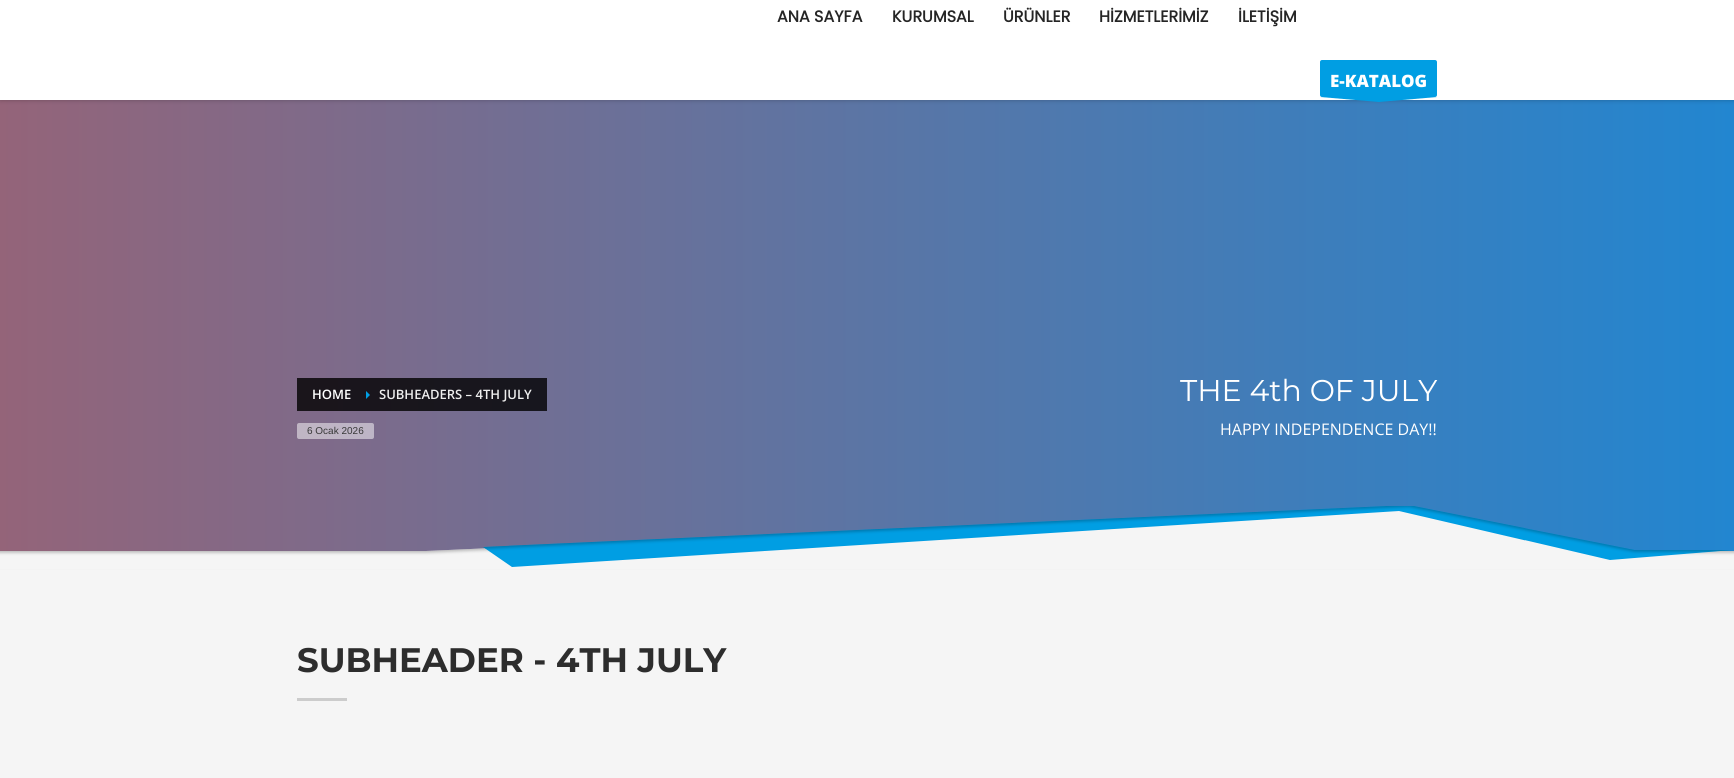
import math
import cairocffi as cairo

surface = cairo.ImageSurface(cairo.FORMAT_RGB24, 1734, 778)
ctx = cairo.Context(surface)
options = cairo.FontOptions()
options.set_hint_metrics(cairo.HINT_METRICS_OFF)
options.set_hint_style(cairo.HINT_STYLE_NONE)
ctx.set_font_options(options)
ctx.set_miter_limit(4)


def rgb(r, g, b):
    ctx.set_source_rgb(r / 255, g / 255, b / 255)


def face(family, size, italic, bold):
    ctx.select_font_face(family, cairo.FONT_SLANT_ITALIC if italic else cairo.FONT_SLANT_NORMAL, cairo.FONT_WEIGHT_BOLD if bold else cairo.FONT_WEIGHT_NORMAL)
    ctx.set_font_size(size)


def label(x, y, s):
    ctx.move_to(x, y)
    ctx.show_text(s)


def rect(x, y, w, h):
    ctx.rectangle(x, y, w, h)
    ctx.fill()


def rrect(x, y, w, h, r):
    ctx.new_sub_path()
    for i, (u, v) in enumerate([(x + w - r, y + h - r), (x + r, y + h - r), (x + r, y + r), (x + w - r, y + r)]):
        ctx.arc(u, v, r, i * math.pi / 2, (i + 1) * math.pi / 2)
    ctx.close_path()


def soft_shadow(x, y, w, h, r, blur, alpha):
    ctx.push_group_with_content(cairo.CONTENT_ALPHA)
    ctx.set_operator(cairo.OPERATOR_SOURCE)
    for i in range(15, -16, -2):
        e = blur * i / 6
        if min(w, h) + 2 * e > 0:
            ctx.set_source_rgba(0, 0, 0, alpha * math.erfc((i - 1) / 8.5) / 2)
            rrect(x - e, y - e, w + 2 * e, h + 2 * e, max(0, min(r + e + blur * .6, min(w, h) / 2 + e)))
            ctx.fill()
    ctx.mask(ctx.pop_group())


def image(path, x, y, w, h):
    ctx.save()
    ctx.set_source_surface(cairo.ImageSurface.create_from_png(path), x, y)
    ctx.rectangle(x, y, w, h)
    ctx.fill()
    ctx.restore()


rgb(245, 245, 245)
ctx.paint()
gradient = cairo.LinearGradient(0, 335, 1734, 335)
gradient.add_color_stop_rgba(0, 0.58, 0.392, 0.475, 1)
gradient.add_color_stop_rgba(1, 0.133, 0.525, 0.816, 1)
ctx.set_source(gradient)
rect(0, 100, 1734, 451)
rgb(0, 0, 0)
soft_shadow(0, 0, 1734, 100, 0, 2.5, 0.25)
rgb(255, 255, 255)
rect(0, 0, 1734, 100)
face('Poppins', 16, 0, 1)
rgb(37, 37, 37)
label(777, 22, 'ANA SAYFA')
label(892, 22, 'KURUMSAL')
label(1003, 22, 'ÜRÜNLER')
label(1099, 22, 'HİZMETLERİMİZ')
label(1238, 22, 'İLETİŞİM')
rgb(0, 158, 227)
rrect(1320, 60, 117, 37, 2)
ctx.fill()
face('Open Sans ExtraBold', 17, 0, 0)
rgb(255, 255, 255)
label(1330, 87, 'E-KATALOG')
rgb(0, 158, 227)
ctx.set_fill_rule(cairo.FILL_RULE_EVEN_ODD)
ctx.new_path()
ctx.move_to(1437, 97)
ctx.line_to(1379, 102)
ctx.line_to(1320, 97)
ctx.close_path()
ctx.fill()
gradient = cairo.LinearGradient(0, 335, 1734, 335)
gradient.add_color_stop_rgba(0, 0.118, 0.078, 0.094, 1)
gradient.add_color_stop_rgba(1, 0.027, 0.106, 0.165, 1)
ctx.set_source(gradient)
rect(356, 378, 191, 33)
rect(297, 378, 59, 33)
face('Open Sans SemiBold', 13, 0, 0)
rgb(255, 255, 255)
label(312, 399, 'HOME')
rgb(0, 158, 227)
ctx.set_fill_rule(cairo.FILL_RULE_WINDING)
ctx.new_path()
ctx.move_to(366, 399)
ctx.line_to(366, 391)
ctx.line_to(370, 395)
ctx.close_path()
ctx.fill()
rgb(238, 238, 238)
label(379, 399, 'SUBHEADERS – 4TH JULY')
ctx.set_source_rgba(1, 1, 1, 0.5)
rrect(297, 423, 77, 16, 2)
ctx.fill()
face('Liberation Sans', 10, 0, 0)
rgb(56, 56, 56)
label(307, 434, '6 Ocak 2026')
face('Montserrat', 30, 0, 0)
rgb(255, 255, 255)
label(1180, 401, 'THE 4th OF JULY')
face('Open Sans', 16, 0, 0)
label(1220, 435, 'HAPPY INDEPENDENCE DAY!!')
image('image0.png', 0, 506, 1734, 64)
face('Montserrat', 34, 0, 1)
rgb(45, 45, 45)
label(297, 672, 'SUBHEADER - 4TH JULY')
rgb(204, 204, 204)
rect(297, 698, 50, 3)
surface.write_to_png('render.png')
